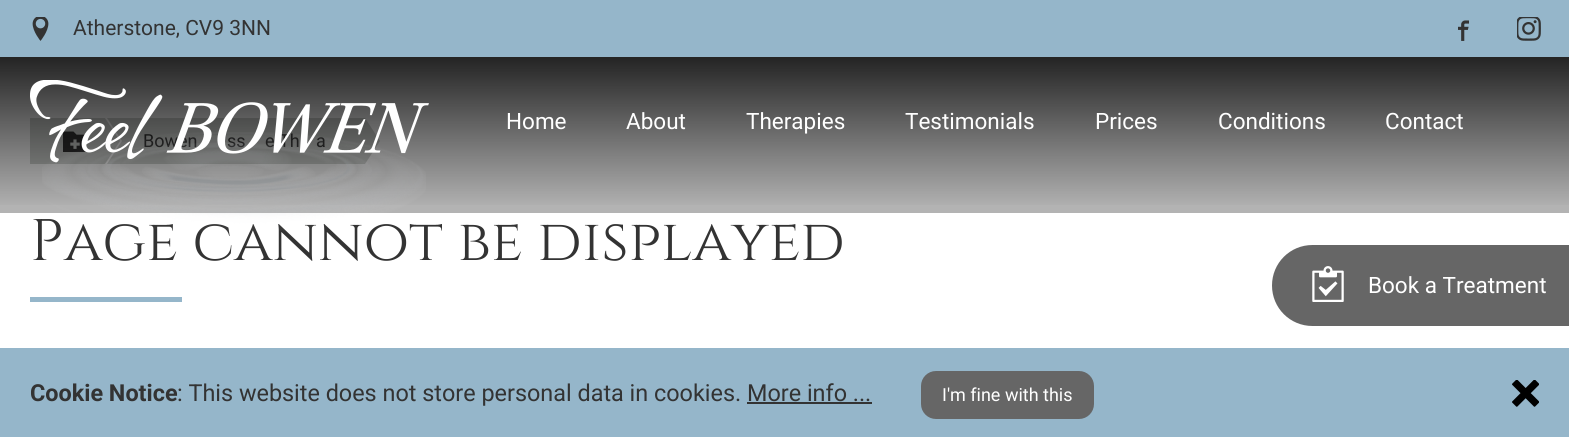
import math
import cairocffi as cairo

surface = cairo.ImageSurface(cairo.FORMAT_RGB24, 1569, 437)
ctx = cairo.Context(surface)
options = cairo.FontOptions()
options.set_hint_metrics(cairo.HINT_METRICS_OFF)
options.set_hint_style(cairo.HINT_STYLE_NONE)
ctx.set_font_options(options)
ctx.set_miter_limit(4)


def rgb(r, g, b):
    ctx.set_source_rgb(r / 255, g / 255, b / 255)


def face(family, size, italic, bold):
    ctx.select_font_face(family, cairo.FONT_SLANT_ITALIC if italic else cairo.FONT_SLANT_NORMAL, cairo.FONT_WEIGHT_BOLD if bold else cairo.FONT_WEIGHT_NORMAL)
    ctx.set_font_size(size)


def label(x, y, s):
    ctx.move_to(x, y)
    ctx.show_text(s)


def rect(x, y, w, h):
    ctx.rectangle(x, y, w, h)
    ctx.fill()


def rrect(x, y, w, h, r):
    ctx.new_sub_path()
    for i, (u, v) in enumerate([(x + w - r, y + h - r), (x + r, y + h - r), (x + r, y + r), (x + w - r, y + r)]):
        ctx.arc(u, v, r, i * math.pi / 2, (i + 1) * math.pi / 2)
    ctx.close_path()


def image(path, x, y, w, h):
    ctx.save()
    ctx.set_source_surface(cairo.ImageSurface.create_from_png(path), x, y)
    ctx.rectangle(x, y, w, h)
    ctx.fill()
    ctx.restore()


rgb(255, 255, 255)
ctx.paint()
rgb(179, 179, 179)
rect(0, 57, 1569, 156)
rgb(149, 182, 202)
rect(0, 0, 1569, 57)
image('image0.png', 32, 17, 17, 24)
face('Roboto', 21, 0, 0)
rgb(51, 51, 51)
label(73, 35, 'Atherstone, CV9 3NN')
image('image1.png', 1458, 20, 11, 21)
image('image2.png', 1517, 17, 24, 24)
rgb(146, 148, 146)
ctx.new_path()
ctx.move_to(105, 118)
ctx.line_to(30, 118)
ctx.line_to(30, 164)
ctx.line_to(105, 164)
ctx.line_to(120, 141)
ctx.close_path()
ctx.fill()
image('image5.png', 63, 131, 24, 21)
ctx.new_path()
ctx.move_to(365, 118)
ctx.line_to(380, 141)
ctx.line_to(365, 164)
ctx.line_to(107, 164)
ctx.line_to(122, 141)
ctx.line_to(107, 118)
ctx.close_path()
ctx.fill()
face('Roboto', 18, 0, 0)
rgb(36, 36, 36)
label(143, 147, 'Bowen')
label(227, 147, 'ss')
label(265, 147, 'e Th')
label(316, 147, 'a')
gradient = cairo.LinearGradient(785, 57, 785, 209)
gradient.add_color_stop_rgba(0, 0, 0, 0, 0.8)
gradient.add_color_stop_rgba(1, 0, 0, 0, 0)
ctx.set_source(gradient)
rect(0, 57, 1569, 148)
face('Cinzel', 58.5, 0, 0)
rgb(51, 51, 51)
label(30, 260, 'Page cannot be displayed')
image('image4.png', 42, 132, 384, 100)
image('image3.png', 30, 80, 399, 83)
face('Roboto', 22.5, 0, 0)
rgb(255, 255, 255)
label(506, 129, 'Home')
label(626, 129, 'About')
label(746, 129, 'Therapies')
label(905, 129, 'Testimonials')
label(1095, 129, 'Prices')
label(1218, 129, 'Conditions')
label(1385, 129, 'Contact')
rgb(149, 182, 202)
rect(30, 297, 152, 5)
rgb(102, 102, 102)
ctx.new_path()
ctx.move_to(1312.5, 245)
ctx.line_to(1569, 245)
ctx.line_to(1569, 326)
ctx.line_to(1312.5, 326)
ctx.curve_to(1290, 326, 1272, 308, 1272, 285.5)
ctx.curve_to(1272, 263, 1290, 245, 1312.5, 245)
ctx.close_path()
ctx.fill()
image('image6.png', 1312, 266, 32, 36)
rgb(255, 255, 255)
label(1368, 293, 'Book a Treatment')
rgb(149, 182, 202)
rect(0, 348, 1569, 89)
face('Roboto', 23.4, 0, 1)
rgb(51, 51, 51)
label(30, 401, 'Cookie Notice')
face('Roboto', 23.4, 0, 0)
label(177, 401, ': This website does not store personal data in cookies. More info ...')
rect(747, 402, 125, 2)
rgb(102, 102, 102)
rrect(922.5, 372.5, 170, 45, 13.5)
ctx.fill_preserve()
ctx.set_line_width(3)
ctx.stroke()
face('Roboto', 18, 0, 0)
rgb(255, 255, 255)
label(942, 401, 'I\'m fine with this')
image('image7.png', 1512, 380, 27, 27)
surface.write_to_png('render.png')
